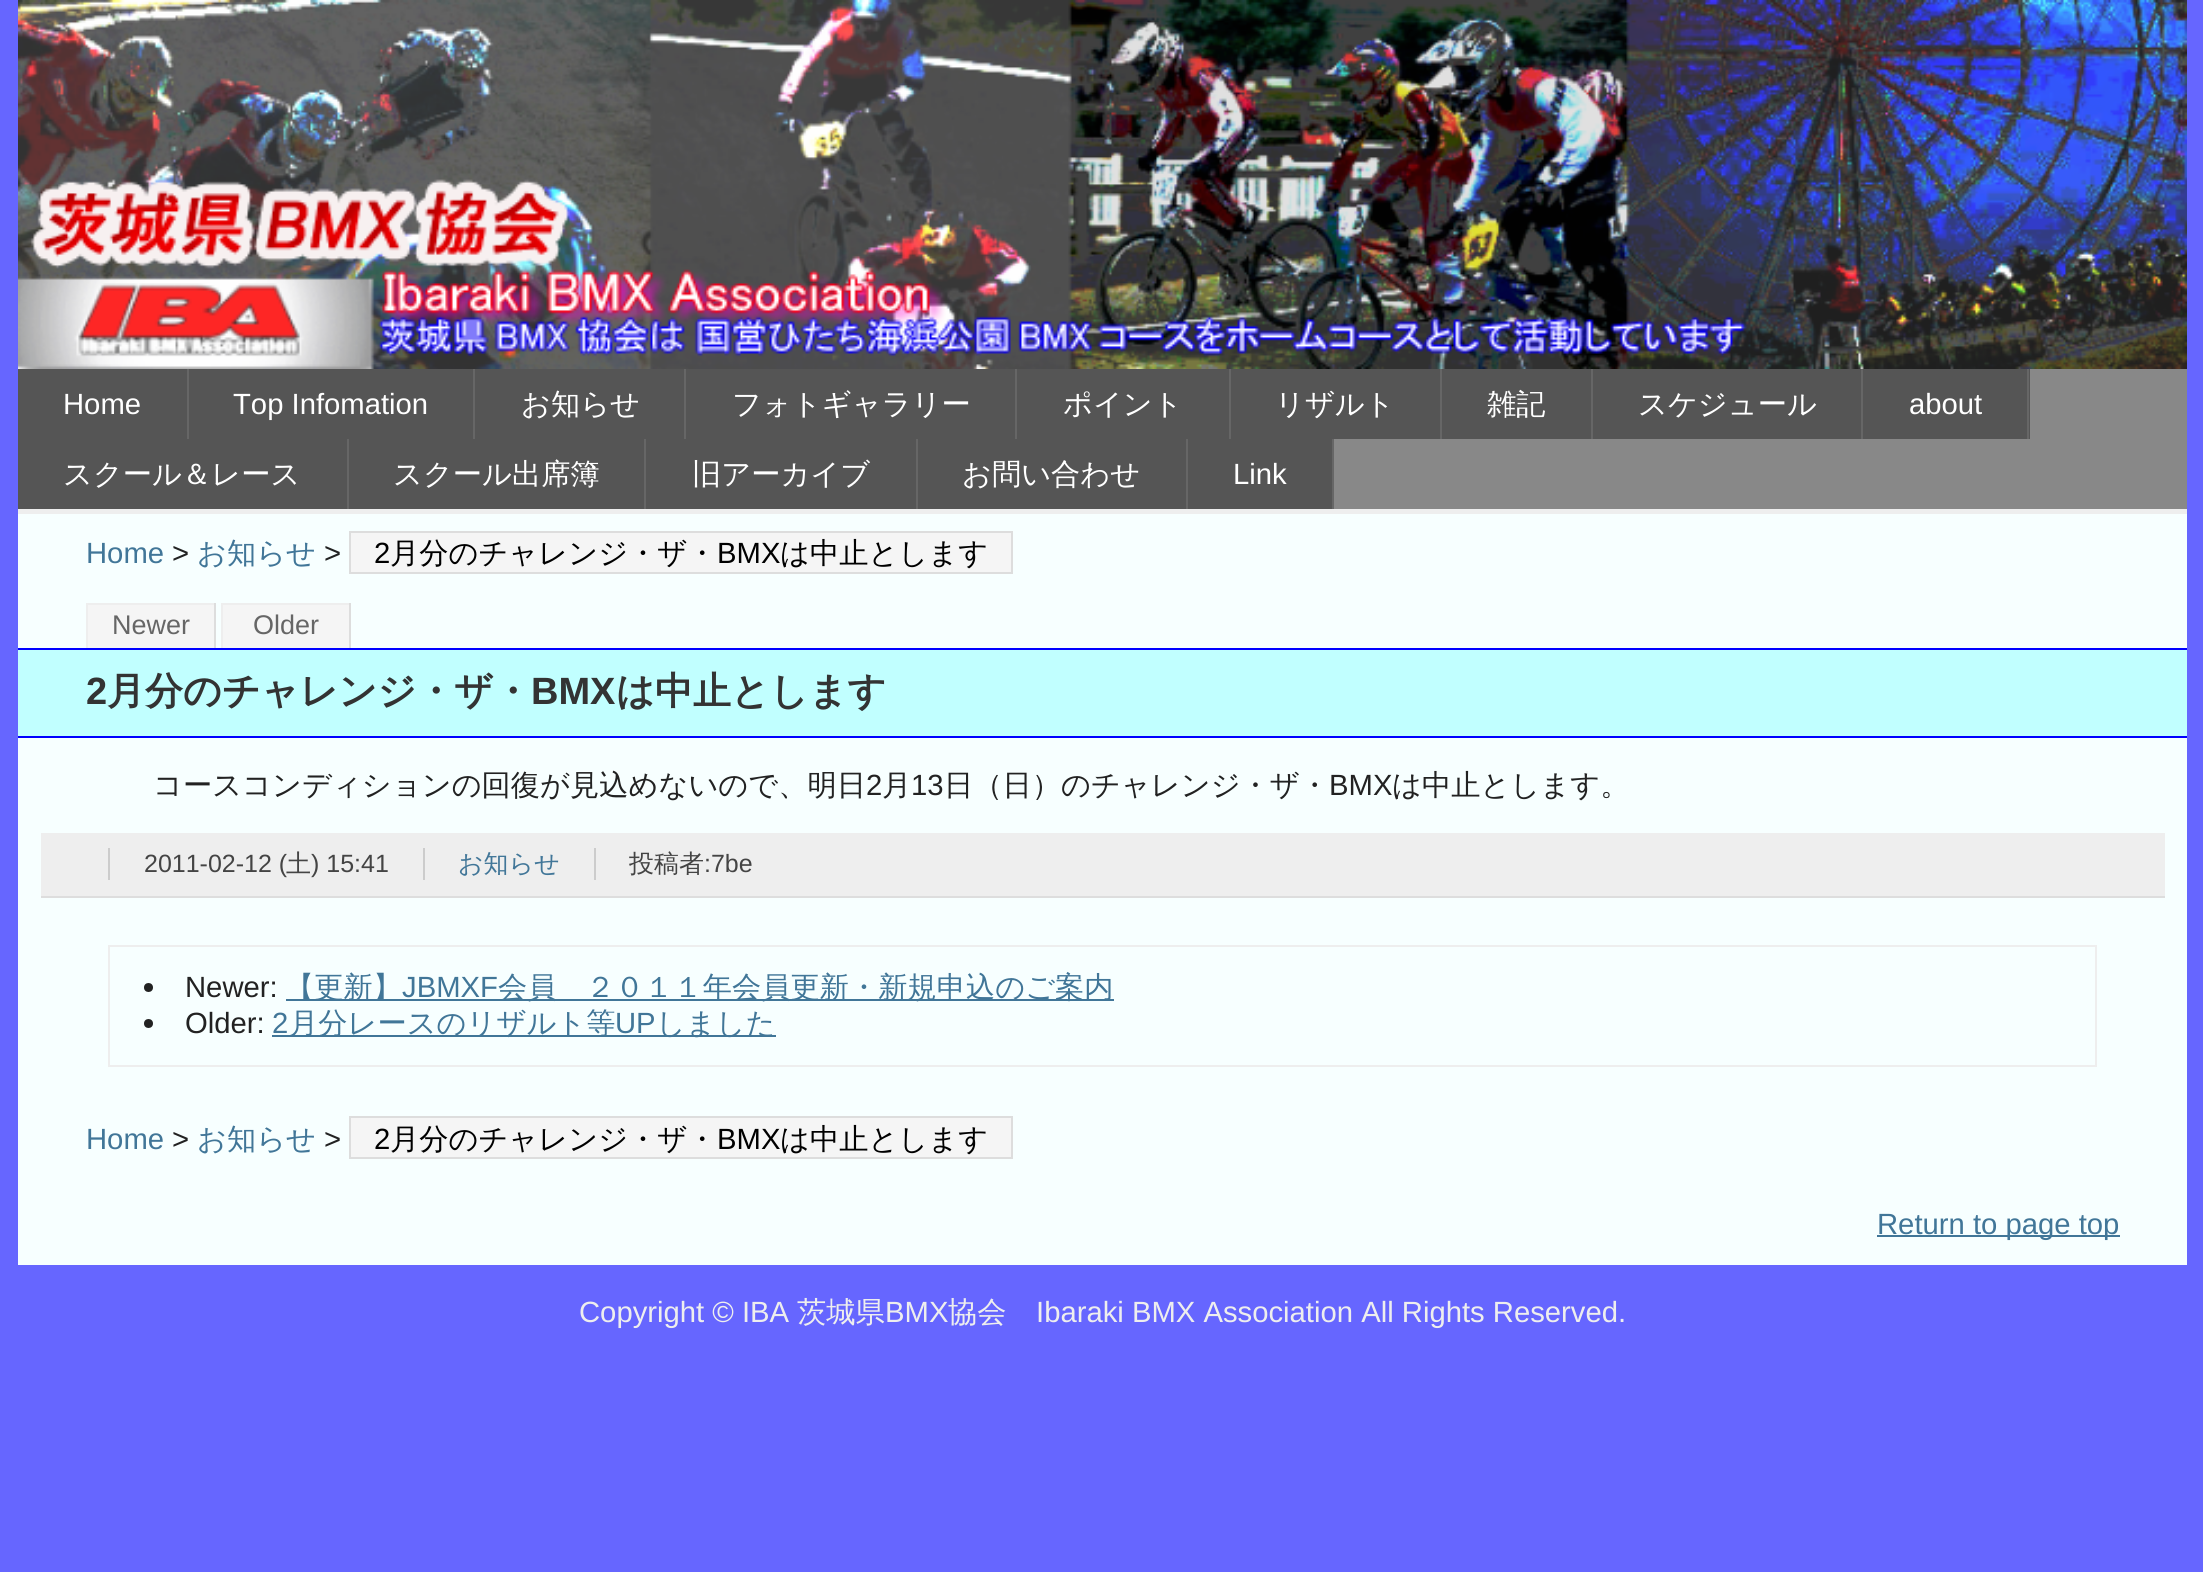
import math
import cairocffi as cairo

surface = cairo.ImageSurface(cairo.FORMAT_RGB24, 2203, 1572)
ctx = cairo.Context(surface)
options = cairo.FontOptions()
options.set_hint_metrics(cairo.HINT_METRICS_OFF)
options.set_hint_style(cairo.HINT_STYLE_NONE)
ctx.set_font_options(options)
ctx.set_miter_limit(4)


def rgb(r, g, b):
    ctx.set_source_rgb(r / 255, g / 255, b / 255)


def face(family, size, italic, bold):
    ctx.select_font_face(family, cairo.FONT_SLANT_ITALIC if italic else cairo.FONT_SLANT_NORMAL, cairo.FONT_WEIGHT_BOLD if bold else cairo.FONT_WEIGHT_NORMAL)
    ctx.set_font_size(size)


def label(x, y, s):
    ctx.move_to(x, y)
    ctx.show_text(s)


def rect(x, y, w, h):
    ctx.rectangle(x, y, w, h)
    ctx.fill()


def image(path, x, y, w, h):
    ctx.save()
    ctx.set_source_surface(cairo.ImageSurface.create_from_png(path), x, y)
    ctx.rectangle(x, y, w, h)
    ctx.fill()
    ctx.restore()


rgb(102, 102, 255)
ctx.paint()
image('image0.png', 18, 0, 2169, 369)
rgb(136, 136, 136)
rect(1334, 369, 853, 140)
rgb(85, 85, 85)
rect(18, 369, 169, 70)
rgb(102, 102, 102)
rect(187, 369, 2, 70)
face('Liberation Sans', 29.25, 0, 0)
rgb(255, 255, 255)
label(63, 414, 'Home')
rgb(85, 85, 85)
rect(189, 369, 284, 70)
rgb(102, 102, 102)
rect(473, 369, 2, 70)
rgb(255, 255, 255)
label(233, 414, 'Top Infomation')
rgb(85, 85, 85)
rect(475, 369, 209, 70)
rgb(102, 102, 102)
rect(684, 369, 2, 70)
face('WenQuanYi Zen Hei Medium', 29.25, 0, 0)
rgb(255, 255, 255)
label(521, 414, 'お知らせ')
rgb(85, 85, 85)
rect(686, 369, 329, 70)
rgb(102, 102, 102)
rect(1015, 369, 2, 70)
rgb(255, 255, 255)
label(732, 414, 'フォトギャラリー')
rgb(85, 85, 85)
rect(1017, 369, 212, 70)
rgb(102, 102, 102)
rect(1229, 369, 2, 70)
rgb(255, 255, 255)
label(1063, 414, 'ポイント')
rgb(85, 85, 85)
rect(1231, 369, 209, 70)
rgb(102, 102, 102)
rect(1440, 369, 2, 70)
rgb(255, 255, 255)
label(1275, 414, 'リザルト')
rgb(85, 85, 85)
rect(1442, 369, 149, 70)
rgb(102, 102, 102)
rect(1591, 369, 2, 70)
rgb(255, 255, 255)
label(1487, 414, '雑記')
rgb(85, 85, 85)
rect(1593, 369, 268, 70)
rgb(102, 102, 102)
rect(1861, 369, 2, 70)
rgb(255, 255, 255)
label(1638, 414, 'スケジュール')
rgb(85, 85, 85)
rect(1863, 369, 167, 70)
rgb(102, 102, 102)
rect(2027, 369, 2, 70)
face('Liberation Sans', 29.25, 0, 0)
rgb(255, 255, 255)
label(1909, 414, 'about')
rgb(85, 85, 85)
rect(18, 439, 329, 70)
rgb(102, 102, 102)
rect(347, 439, 2, 70)
face('WenQuanYi Zen Hei Medium', 29.25, 0, 0)
rgb(255, 255, 255)
label(63, 484, 'スクール＆レース')
rgb(85, 85, 85)
rect(349, 439, 295, 70)
rgb(102, 102, 102)
rect(644, 439, 2, 70)
rgb(255, 255, 255)
label(393, 484, 'スクール出席簿')
rgb(85, 85, 85)
rect(646, 439, 270, 70)
rgb(102, 102, 102)
rect(916, 439, 2, 70)
rgb(255, 255, 255)
label(692, 484, '旧アーカイブ')
rgb(85, 85, 85)
rect(918, 439, 268, 70)
rgb(102, 102, 102)
rect(1186, 439, 2, 70)
rgb(255, 255, 255)
label(962, 484, 'お問い合わせ')
rgb(85, 85, 85)
rect(1188, 439, 144, 70)
rgb(102, 102, 102)
rect(1332, 439, 2, 70)
face('Liberation Sans', 29.25, 0, 0)
rgb(255, 255, 255)
label(1233, 484, 'Link')
rgb(247, 255, 255)
rect(18, 514, 2169, 751)
rgb(238, 238, 238)
rect(18, 509, 2169, 5)
rgb(65, 118, 152)
label(86, 563, 'Home')
rgb(34, 34, 34)
label(172, 563, '>')
face('WenQuanYi Zen Hei Medium', 29.25, 0, 0)
rgb(65, 118, 152)
label(197, 563, 'お知らせ')
face('Liberation Sans', 29.25, 0, 0)
rgb(34, 34, 34)
label(324, 563, '>')
rgb(245, 245, 245)
ctx.rectangle(350, 532, 662, 41)
ctx.fill_preserve()
rgb(221, 221, 221)
ctx.stroke()
rgb(0, 0, 0)
label(374, 563, '2')
face('WenQuanYi Zen Hei Medium', 29.25, 0, 0)
label(390, 563, '月分のチャレンジ・ザ・')
face('Liberation Sans', 29.25, 0, 0)
label(717, 563, 'BMX')
face('WenQuanYi Zen Hei Medium', 29.25, 0, 0)
label(780, 563, 'は中止とします')
rgb(245, 245, 245)
rect(88, 605, 126, 43)
rgb(238, 238, 238)
rect(86, 603, 130, 2)
rgb(221, 221, 221)
rect(214, 603, 2, 45)
rgb(238, 238, 238)
rect(86, 603, 2, 45)
face('Liberation Sans', 27, 0, 0)
rgb(102, 102, 102)
label(112, 634, 'Newer')
rgb(245, 245, 245)
rect(223, 605, 126, 43)
rgb(238, 238, 238)
rect(221, 603, 130, 2)
rgb(221, 221, 221)
rect(349, 603, 2, 45)
rgb(238, 238, 238)
rect(221, 603, 2, 45)
rgb(102, 102, 102)
label(253, 634, 'Older')
rgb(193, 255, 255)
rect(18, 650, 2169, 86)
rgb(0, 0, 255)
rect(18, 648, 2169, 2)
rect(18, 736, 2169, 2)
face('Liberation Sans', 38, 0, 1)
rgb(51, 51, 51)
label(86, 704, '2')
face('WenQuanYi Zen Hei', 38, 0, 1)
label(107, 704, '月分のチャレンジ・ザ・')
face('Liberation Sans', 38, 0, 1)
label(531, 704, 'BMX')
face('WenQuanYi Zen Hei', 38, 0, 1)
label(616, 704, 'は中止とします')
face('WenQuanYi Zen Hei Medium', 29.25, 0, 0)
rgb(34, 34, 34)
label(153, 795, 'コースコンディションの回復が見込めないので、明日')
face('Liberation Sans', 29.25, 0, 0)
label(866, 795, '2')
face('WenQuanYi Zen Hei Medium', 29.25, 0, 0)
label(882, 795, '月')
face('Liberation Sans', 29.25, 0, 0)
label(911, 795, '13')
face('WenQuanYi Zen Hei Medium', 29.25, 0, 0)
label(944, 795, '日（日）のチャレンジ・ザ・')
face('Liberation Sans', 29.25, 0, 0)
label(1329, 795, 'BMX')
face('WenQuanYi Zen Hei Medium', 29.25, 0, 0)
label(1392, 795, 'は中止とします。')
rgb(238, 238, 238)
rect(41, 833, 2124, 63)
rgb(221, 221, 221)
rect(41, 896, 2124, 2)
rgb(204, 204, 204)
rect(108, 848, 2, 32)
face('Liberation Sans', 25, 0, 0)
rgb(68, 68, 68)
label(144, 872, '2011-02-12 (')
face('WenQuanYi Zen Hei Medium', 25, 0, 0)
label(286, 872, '土')
face('Liberation Sans', 25, 0, 0)
label(311, 872, ') 15:41')
rgb(204, 204, 204)
rect(423, 848, 2, 32)
face('WenQuanYi Zen Hei Medium', 25, 0, 0)
rgb(65, 118, 152)
label(458, 872, 'お知らせ')
rgb(204, 204, 204)
rect(594, 848, 2, 32)
rgb(68, 68, 68)
label(629, 872, '投稿者')
face('Liberation Sans', 25, 0, 0)
label(704, 872, ':7be')
ctx.rectangle(109, 946, 1987, 120)
rgb(238, 238, 238)
ctx.stroke()
rgb(34, 34, 34)
ctx.arc(148.5, 987.5, 4.5, 0, 2 * math.pi)
ctx.fill()
face('Liberation Sans', 29.25, 0, 0)
label(185, 997, 'Newer:')
rgb(65, 118, 152)
rect(286, 999, 828, 2)
face('WenQuanYi Zen Hei Medium', 29.25, 0, 0)
label(285, 997, '【更新】')
face('Liberation Sans', 29.25, 0, 0)
label(402, 997, 'JBMXF')
face('WenQuanYi Zen Hei Medium', 29.25, 0, 0)
label(498, 997, '会員　２０１１年会員更新・新規申込のご案内')
rgb(34, 34, 34)
ctx.new_path()
ctx.arc(148.5, 1023.5, 4.5, 0, 2 * math.pi)
ctx.fill()
face('Liberation Sans', 29.25, 0, 0)
label(185, 1033, 'Older:')
rgb(65, 118, 152)
label(272, 1033, '2')
rect(272, 1035, 504, 2)
face('WenQuanYi Zen Hei Medium', 29.25, 0, 0)
label(289, 1033, '月分レースのリザルト等')
face('Liberation Sans', 29.25, 0, 0)
label(615, 1033, 'UP')
face('WenQuanYi Zen Hei Medium', 29.25, 0, 0)
label(656, 1033, 'しました')
face('Liberation Sans', 29.25, 0, 0)
label(86, 1149, 'Home')
rgb(34, 34, 34)
label(172, 1149, '>')
face('WenQuanYi Zen Hei Medium', 29.25, 0, 0)
rgb(65, 118, 152)
label(197, 1149, 'お知らせ')
face('Liberation Sans', 29.25, 0, 0)
rgb(34, 34, 34)
label(324, 1149, '>')
rgb(245, 245, 245)
ctx.rectangle(350, 1117, 662, 41)
ctx.fill_preserve()
rgb(221, 221, 221)
ctx.stroke()
rgb(0, 0, 0)
label(374, 1149, '2')
face('WenQuanYi Zen Hei Medium', 29.25, 0, 0)
label(390, 1149, '月分のチャレンジ・ザ・')
face('Liberation Sans', 29.25, 0, 0)
label(717, 1149, 'BMX')
face('WenQuanYi Zen Hei Medium', 29.25, 0, 0)
label(780, 1149, 'は中止とします')
rgb(65, 118, 152)
rect(1877, 1235, 243, 2)
face('Liberation Sans', 29.25, 0, 0)
label(1877, 1234, 'Return to page top')
rgb(238, 238, 238)
label(579, 1322, 'Copyright © IBA')
face('WenQuanYi Zen Hei Medium', 29.25, 0, 0)
label(797, 1322, '茨城県')
face('Liberation Sans', 29.25, 0, 0)
label(885, 1322, 'BMX')
face('WenQuanYi Zen Hei Medium', 29.25, 0, 0)
label(948, 1322, '協会')
face('Liberation Sans', 29.25, 0, 0)
label(1036, 1322, 'Ibaraki BMX Association All Rights Reserved.')
surface.write_to_png('render.png')
